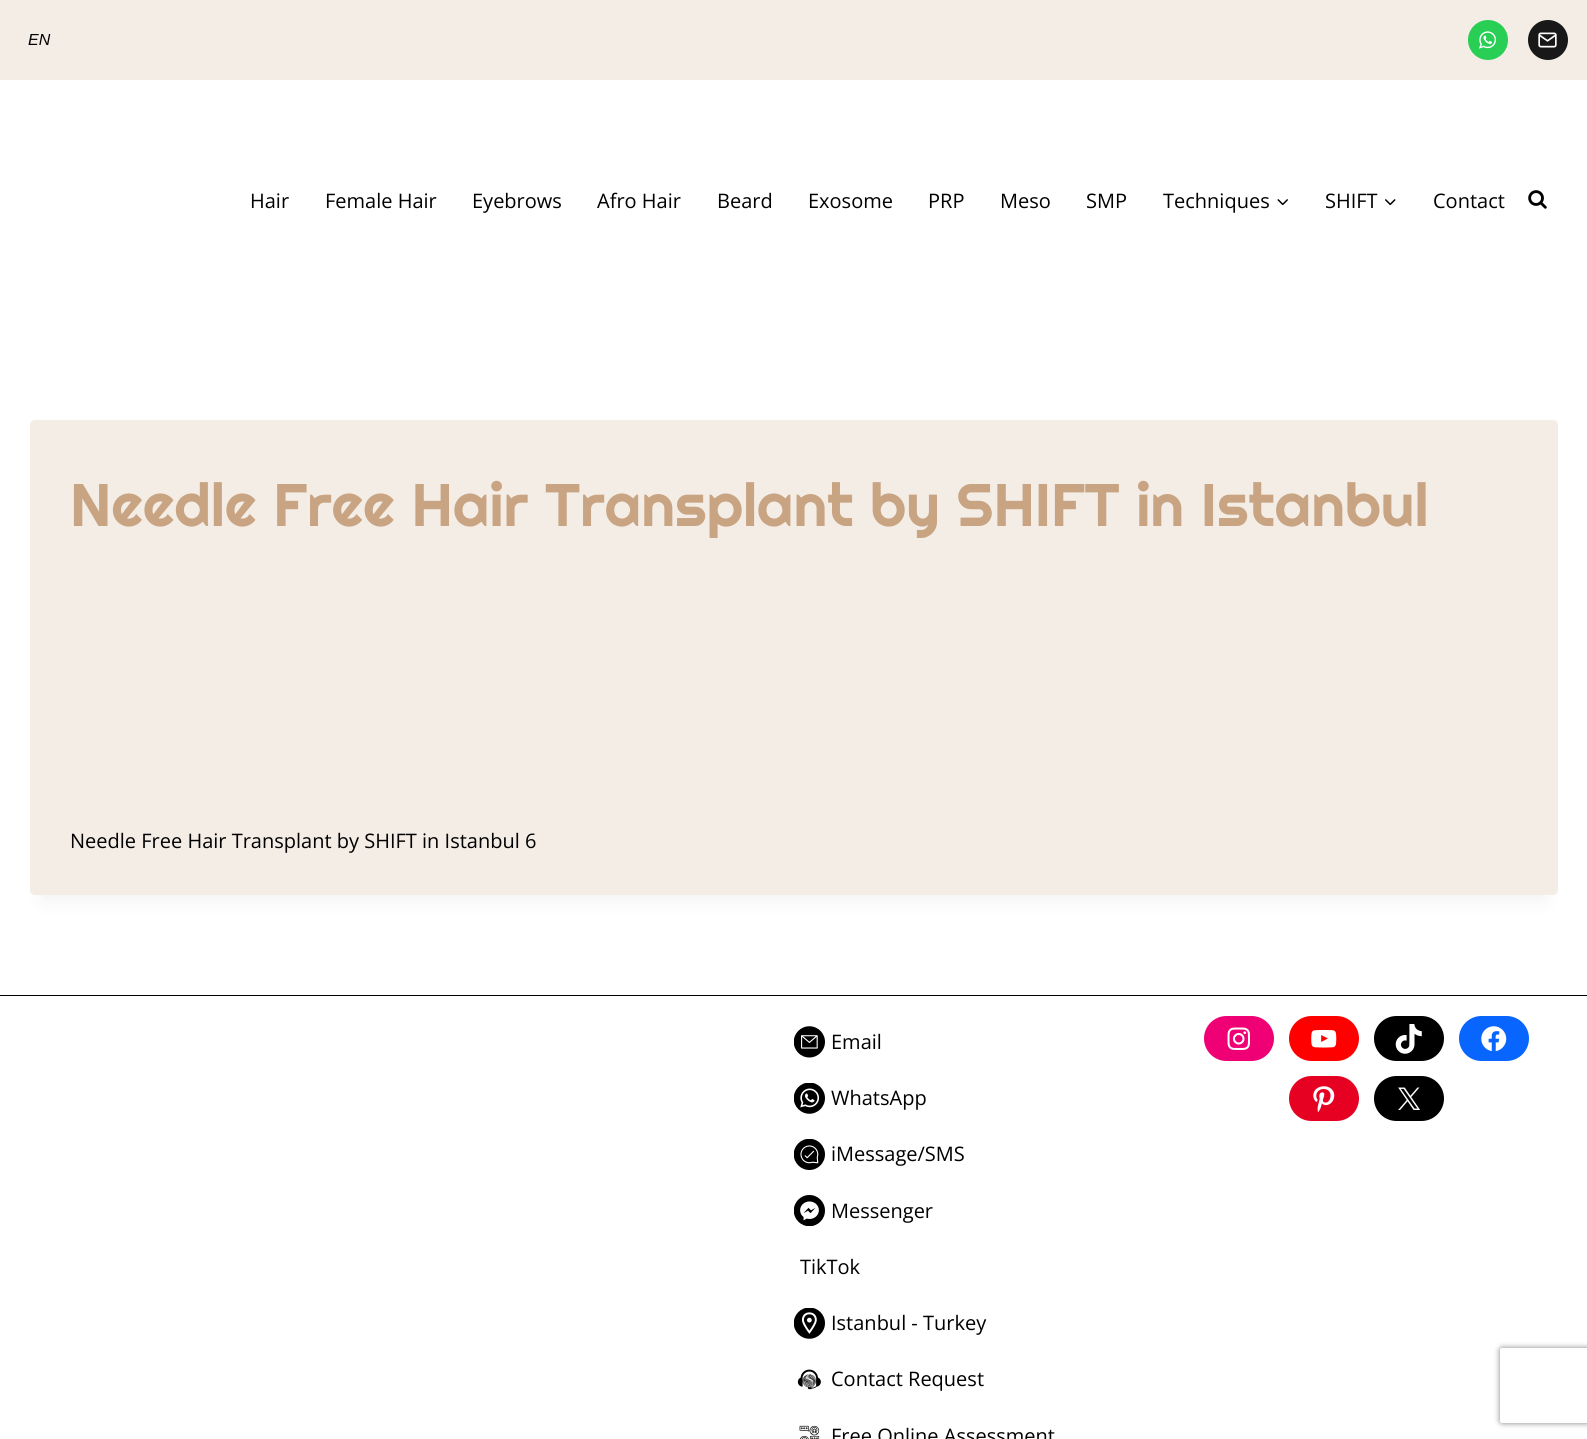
import math
import cairocffi as cairo

surface = cairo.ImageSurface(cairo.FORMAT_RGB24, 1587, 1439)
ctx = cairo.Context(surface)
options = cairo.FontOptions()
options.set_hint_metrics(cairo.HINT_METRICS_OFF)
options.set_hint_style(cairo.HINT_STYLE_NONE)
ctx.set_font_options(options)
ctx.set_miter_limit(4)


def rgb(r, g, b):
    ctx.set_source_rgb(r / 255, g / 255, b / 255)


def face(family, size, italic, bold):
    ctx.select_font_face(family, cairo.FONT_SLANT_ITALIC if italic else cairo.FONT_SLANT_NORMAL, cairo.FONT_WEIGHT_BOLD if bold else cairo.FONT_WEIGHT_NORMAL)
    ctx.set_font_size(size)


def label(x, y, s):
    ctx.move_to(x, y)
    ctx.show_text(s)


def rect(x, y, w, h):
    ctx.rectangle(x, y, w, h)
    ctx.fill()


def rrect(x, y, w, h, r):
    ctx.new_sub_path()
    for i, (u, v) in enumerate([(x + w - r, y + h - r), (x + r, y + h - r), (x + r, y + r), (x + w - r, y + r)]):
        ctx.arc(u, v, r, i * math.pi / 2, (i + 1) * math.pi / 2)
    ctx.close_path()


def soft_shadow(x, y, w, h, r, blur, alpha):
    ctx.push_group_with_content(cairo.CONTENT_ALPHA)
    ctx.set_operator(cairo.OPERATOR_SOURCE)
    for i in range(15, -16, -2):
        e = blur * i / 6
        if min(w, h) + 2 * e > 0:
            ctx.set_source_rgba(0, 0, 0, alpha * math.erfc((i - 1) / 8.5) / 2)
            rrect(x - e, y - e, w + 2 * e, h + 2 * e, max(0, min(r + e + blur * .6, min(w, h) / 2 + e)))
            ctx.fill()
    ctx.mask(ctx.pop_group())


def image(path, x, y, w, h):
    ctx.save()
    ctx.set_source_surface(cairo.ImageSurface.create_from_png(path), x, y)
    ctx.rectangle(x, y, w, h)
    ctx.fill()
    ctx.restore()


rgb(255, 255, 255)
ctx.paint()
rgb(244, 237, 230)
rect(0, 0, 1587, 80)
face('Liberation Sans', 16, 1, 0)
rgb(0, 0, 0)
label(28, 45, 'EN')
rgb(40, 207, 84)
ctx.new_path()
ctx.arc(1488, 40, 20, 0, 2 * math.pi)
ctx.fill()
image('image0.png', 1479, 31, 18, 18)
rgb(24, 24, 24)
ctx.arc(1548, 40, 20, 0, 2 * math.pi)
ctx.fill()
image('image1.png', 1538, 32, 19, 16)
face('Open Sans', 20, 0, 0)
rgb(0, 0, 0)
label(250, 208, 'Hair')
label(325, 208, 'Female Hair')
label(472, 208, 'Eyebrows')
label(597, 208, 'Afro Hair')
label(717, 208, 'Beard')
label(808, 208, 'Exosome')
label(928, 208, 'PRP')
label(1000, 208, 'Meso')
label(1086, 208, 'SMP')
label(1163, 208, 'Techniques')
image('image2.png', 1277, 199, 11, 7)
label(1325, 208, 'SHIFT')
image('image3.png', 1385, 199, 11, 7)
label(1433, 208, 'Contact')
image('image4.png', 1528, 190, 19, 19)
rgb(0, 0, 0)
soft_shadow(43, 451, 1502, 450, 0, 9.5, 0.05)
rgb(244, 237, 230)
rrect(30, 420, 1528, 475, 5)
ctx.fill()
face('Righteous', 60, 0, 0)
rgb(200, 164, 130)
label(70, 526, 'Needle Free Hair Transplant by SHIFT in Istanbul')
face('Open Sans', 20, 0, 0)
rgb(0, 0, 0)
label(70, 848, 'Needle Free Hair Transplant by SHIFT in Istanbul 6')
rect(0, 995, 1587, 1)
image('image5.png', 794, 1026, 31, 32)
label(831, 1049, 'Email')
image('image6.png', 794, 1083, 31, 31)
label(831, 1105, 'WhatsApp')
image('image7.png', 794, 1139, 31, 31)
label(831, 1161, 'iMessage/SMS')
image('image8.png', 794, 1195, 31, 31)
label(831, 1218, 'Messenger')
label(800, 1274, 'TikTok')
image('image9.png', 794, 1308, 31, 31)
label(831, 1330, 'Istanbul - Turkey')
image('image10.png', 797, 1369, 24, 21)
label(831, 1386, 'Contact Request')
image('image11.png', 799, 1425, 21, 14)
label(831, 1443, 'Free Online Assessment')
rgb(240, 0, 117)
rrect(1204, 1016, 70, 45, 22.5)
ctx.fill()
image('image12.png', 1227, 1027, 23, 23)
rgb(255, 0, 0)
rrect(1289, 1016, 70, 45, 22.5)
ctx.fill()
image('image13.png', 1311, 1029, 26, 19)
rgb(0, 0, 0)
rrect(1374, 1016, 70, 45, 22.5)
ctx.fill()
image('image14.png', 1395, 1024, 27, 30)
rgb(8, 102, 255)
rrect(1459, 1016, 70, 45, 22.5)
ctx.fill()
image('image15.png', 1481, 1026, 26, 26)
rgb(230, 1, 34)
rrect(1289, 1076, 70, 45, 22.5)
ctx.fill()
image('image16.png', 1313, 1086, 22, 27)
rgb(0, 0, 0)
rrect(1374, 1076, 70, 45, 22.5)
ctx.fill()
image('image17.png', 1398, 1087, 22, 23)
ctx.save()
ctx.set_fill_rule(cairo.FILL_RULE_EVEN_ODD)
ctx.new_path()
ctx.move_to(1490, 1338)
ctx.line_to(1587, 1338)
ctx.line_to(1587, 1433)
ctx.line_to(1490, 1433)
ctx.close_path()
ctx.move_to(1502.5, 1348)
ctx.line_to(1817.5, 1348)
ctx.curve_to(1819, 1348, 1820, 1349, 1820, 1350.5)
ctx.line_to(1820, 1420.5)
ctx.curve_to(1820, 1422, 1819, 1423, 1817.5, 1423)
ctx.line_to(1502.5, 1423)
ctx.curve_to(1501, 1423, 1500, 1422, 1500, 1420.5)
ctx.line_to(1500, 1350.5)
ctx.curve_to(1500, 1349, 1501, 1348, 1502.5, 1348)
ctx.close_path()
ctx.clip()
rgb(128, 128, 128)
soft_shadow(1500, 1348, 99, 75, 2.5, 3, 1)
ctx.restore()
surface.write_to_png('render.png')
